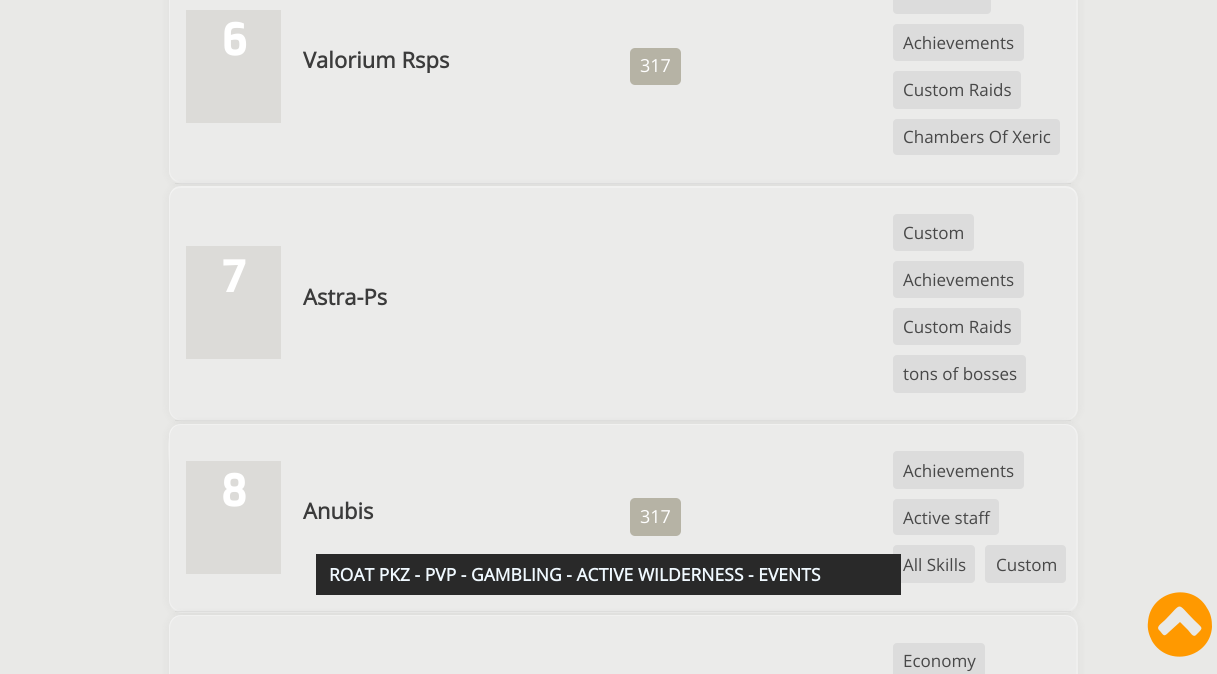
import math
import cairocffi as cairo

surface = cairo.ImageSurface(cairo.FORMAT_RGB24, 1217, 674)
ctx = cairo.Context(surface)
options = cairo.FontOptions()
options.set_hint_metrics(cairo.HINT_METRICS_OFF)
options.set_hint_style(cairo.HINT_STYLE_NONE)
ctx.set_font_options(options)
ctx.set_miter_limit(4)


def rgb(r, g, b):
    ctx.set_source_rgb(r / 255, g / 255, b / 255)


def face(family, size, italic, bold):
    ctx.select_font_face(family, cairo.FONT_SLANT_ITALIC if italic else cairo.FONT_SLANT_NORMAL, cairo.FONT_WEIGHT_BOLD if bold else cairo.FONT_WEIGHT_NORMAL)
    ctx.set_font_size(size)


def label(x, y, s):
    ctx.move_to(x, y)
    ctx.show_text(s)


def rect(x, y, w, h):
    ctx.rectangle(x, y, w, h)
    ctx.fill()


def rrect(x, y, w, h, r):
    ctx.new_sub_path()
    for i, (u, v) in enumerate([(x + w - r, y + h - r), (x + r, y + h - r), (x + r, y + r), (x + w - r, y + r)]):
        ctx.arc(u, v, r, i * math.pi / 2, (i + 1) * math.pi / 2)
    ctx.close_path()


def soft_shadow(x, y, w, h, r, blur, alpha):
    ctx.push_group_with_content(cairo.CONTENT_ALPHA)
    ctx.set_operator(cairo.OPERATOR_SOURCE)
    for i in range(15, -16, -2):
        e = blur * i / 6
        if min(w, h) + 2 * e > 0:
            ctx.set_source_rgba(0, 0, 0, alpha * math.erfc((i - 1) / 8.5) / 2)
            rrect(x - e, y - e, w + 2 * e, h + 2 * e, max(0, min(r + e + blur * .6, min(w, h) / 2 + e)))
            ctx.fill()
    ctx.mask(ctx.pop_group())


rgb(233, 233, 231)
ctx.paint()
rgb(0, 0, 0)
soft_shadow(169, -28, 909, 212, 13, 5, 0.05)
rgb(235, 235, 234)
rrect(169, -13, 909, 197, 13)
ctx.fill()
rgb(239, 239, 238)
ctx.new_path()
ctx.move_to(176, 181)
ctx.curve_to(177, 182, 179, 182, 181, 182)
ctx.line_to(1065, 182)
ctx.curve_to(1072, 182, 1078, 177, 1078, 171)
ctx.line_to(1078, -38)
ctx.curve_to(1078, -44, 1072, -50, 1065, -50)
ctx.line_to(1064, -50)
ctx.curve_to(1071, -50, 1076, -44, 1076, -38)
ctx.line_to(1076, 171)
ctx.curve_to(1076, 177, 1071, 182, 1064, 182)
ctx.line_to(180, 182)
ctx.close_path()
ctx.fill()
rgb(241, 241, 240)
ctx.new_path()
ctx.move_to(181, -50)
ctx.curve_to(174, -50, 169, -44, 169, -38)
ctx.line_to(169, 171)
ctx.curve_to(169, 177, 174, 182, 181, 182)
ctx.line_to(1065, 182)
ctx.curve_to(1067, 182, 1069, 182, 1071, 181)
ctx.line_to(1066, 182)
ctx.line_to(182, 182)
ctx.curve_to(176, 182, 170, 177, 170, 171)
ctx.line_to(170, -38)
ctx.curve_to(170, -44, 176, -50, 182, -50)
ctx.close_path()
ctx.fill()
ctx.set_source_rgba(0, 0, 0, 0.05)
rect(175, 183, 896, 1)
rgb(220, 219, 216)
rect(186, 10, 95, 113)
face('Doppio One', 45, 0, 1)
rgb(255, 255, 255)
label(221, 55, '6')
ctx.save()
ctx.rectangle(303, 48, 312, 25)
ctx.clip()
face('Open Sans', 22, 0, 1)
rgb(59, 59, 59)
label(303, 68, 'Valorium Rsps')
ctx.restore()
rgb(182, 179, 165)
rrect(630, 48, 51, 37, 5)
ctx.fill()
face('Open Sans', 18, 0, 0)
rgb(255, 255, 255)
label(640, 72, '317')
rgb(220, 220, 220)
rrect(893, -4, 98, 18, 4)
ctx.fill()
rrect(893, 24, 131, 37, 4)
ctx.fill()
face('Open Sans', 17, 0, 0)
rgb(72, 72, 72)
label(903, 49, 'Achievements')
rgb(220, 220, 220)
rrect(893, 71, 128, 38, 4)
ctx.fill()
rgb(72, 72, 72)
label(903, 96, 'Custom Raids')
rgb(220, 220, 220)
rrect(893, 119, 167, 36, 4)
ctx.fill()
rgb(72, 72, 72)
label(903, 143, 'Chambers Of Xeric')
rgb(0, 0, 0)
soft_shadow(169, 186, 909, 235, 13, 5, 0.05)
rgb(235, 235, 234)
rrect(169, 186, 909, 235, 13)
ctx.fill()
ctx.set_source_rgba(1, 1, 1, 0.3)
ctx.new_path()
ctx.move_to(181, 188)
ctx.line_to(1065, 188)
ctx.curve_to(1070, 188, 1075, 191, 1077, 195)
ctx.curve_to(1076, 190, 1071, 186, 1065, 186)
ctx.line_to(181, 186)
ctx.curve_to(174, 186, 169, 192, 169, 199)
ctx.line_to(169, 411)
ctx.line_to(169, 200)
ctx.curve_to(169, 193, 174, 188, 181, 188)
ctx.close_path()
ctx.fill()
ctx.set_source_rgba(1, 1, 1, 0.2)
ctx.new_path()
ctx.move_to(1064, 420)
ctx.line_to(1065, 420)
ctx.curve_to(1072, 420, 1078, 415, 1078, 409)
ctx.line_to(1078, 199)
ctx.curve_to(1078, 193, 1073, 187, 1067, 186)
ctx.curve_to(1072, 188, 1076, 193, 1076, 199)
ctx.line_to(1076, 409)
ctx.curve_to(1076, 415, 1071, 420, 1064, 420)
ctx.close_path()
ctx.fill()
ctx.set_source_rgba(1, 1, 1, 0.3)
ctx.new_path()
ctx.move_to(179, 186)
ctx.curve_to(173, 187, 169, 193, 169, 199)
ctx.line_to(169, 409)
ctx.curve_to(169, 415, 174, 420, 181, 420)
ctx.line_to(182, 420)
ctx.curve_to(176, 420, 170, 415, 170, 409)
ctx.line_to(170, 199)
ctx.curve_to(170, 193, 174, 188, 179, 186)
ctx.close_path()
ctx.fill()
ctx.set_source_rgba(0, 0, 0, 0.05)
rect(175, 420, 896, 1)
rgb(220, 219, 216)
rect(186, 246, 95, 113)
face('Doppio One', 45, 0, 1)
rgb(255, 255, 255)
label(222, 292, '7')
rgb(220, 220, 220)
rrect(893, 214, 81, 37, 4)
ctx.fill()
face('Open Sans', 17, 0, 0)
rgb(72, 72, 72)
label(903, 239, 'Custom')
rgb(220, 220, 220)
rrect(893, 261, 131, 37, 4)
ctx.fill()
rgb(72, 72, 72)
label(903, 286, 'Achievements')
rgb(220, 220, 220)
rrect(893, 308, 128, 37, 4)
ctx.fill()
rgb(72, 72, 72)
label(903, 333, 'Custom Raids')
rgb(220, 220, 220)
rrect(893, 355, 133, 38, 4)
ctx.fill()
rgb(72, 72, 72)
label(903, 380, 'tons of bosses')
face('Open Sans', 22, 0, 1)
rgb(59, 59, 59)
label(303, 305, 'Astra-Ps')
rgb(0, 0, 0)
soft_shadow(169, 424, 909, 189, 13, 5, 0.05)
rgb(235, 235, 234)
rrect(169, 424, 909, 189, 13)
ctx.fill()
ctx.set_source_rgba(1, 1, 1, 0.3)
ctx.new_path()
ctx.move_to(181, 425)
ctx.line_to(1065, 425)
ctx.curve_to(1071, 425, 1075, 429, 1077, 434)
ctx.curve_to(1076, 428, 1071, 424, 1065, 424)
ctx.line_to(181, 424)
ctx.curve_to(174, 424, 169, 429, 169, 436)
ctx.line_to(169, 600)
ctx.line_to(169, 603)
ctx.line_to(169, 465)
ctx.curve_to(169, 458, 163, 425, 181, 425)
ctx.close_path()
ctx.fill()
ctx.set_source_rgba(1, 1, 1, 0.2)
ctx.new_path()
ctx.move_to(180, 424)
ctx.line_to(1064, 424)
ctx.curve_to(1071, 424, 1076, 429, 1076, 436)
ctx.line_to(1076, 600)
ctx.curve_to(1076, 606, 1071, 611, 1064, 611)
ctx.line_to(178, 611)
ctx.line_to(181, 611)
ctx.line_to(1065, 611)
ctx.curve_to(1072, 611, 1078, 606, 1078, 600)
ctx.line_to(1078, 436)
ctx.curve_to(1078, 429, 1072, 424, 1065, 424)
ctx.line_to(181, 424)
ctx.line_to(178, 424)
ctx.close_path()
ctx.fill()
ctx.set_source_rgba(1, 1, 1, 0.3)
ctx.new_path()
ctx.move_to(182, 424)
ctx.line_to(1068, 424)
ctx.line_to(1065, 424)
ctx.line_to(181, 424)
ctx.curve_to(174, 424, 169, 429, 169, 436)
ctx.line_to(169, 600)
ctx.curve_to(169, 606, 174, 611, 181, 611)
ctx.line_to(1065, 611)
ctx.line_to(1069, 611)
ctx.line_to(182, 611)
ctx.curve_to(176, 611, 170, 606, 170, 600)
ctx.line_to(170, 436)
ctx.curve_to(170, 429, 176, 424, 182, 424)
ctx.close_path()
ctx.fill()
ctx.set_source_rgba(0, 0, 0, 0.05)
rect(175, 611, 896, 1)
rgb(220, 219, 216)
rect(186, 461, 95, 113)
face('Doppio One', 45, 0, 1)
rgb(255, 255, 255)
label(220, 506, '8')
rgb(220, 220, 220)
rrect(893, 451, 131, 38, 4)
ctx.fill()
face('Open Sans', 17, 0, 0)
rgb(72, 72, 72)
label(903, 477, 'Achievements')
rgb(220, 220, 220)
rrect(893, 499, 106, 36, 4)
ctx.fill()
rgb(72, 72, 72)
label(903, 524, 'Active staff')
rgb(220, 220, 220)
rrect(893, 545, 82, 38, 4)
ctx.fill()
rgb(72, 72, 72)
label(903, 571, 'All Skills')
rgb(220, 220, 220)
rrect(985, 545, 81, 38, 4)
ctx.fill()
rgb(72, 72, 72)
label(996, 571, 'Custom')
face('Open Sans', 22, 0, 1)
rgb(59, 59, 59)
label(303, 519, 'Anubis')
rgb(182, 179, 165)
rrect(630, 498, 51, 38, 5)
ctx.fill()
face('Open Sans', 18, 0, 0)
rgb(255, 255, 255)
label(640, 523, '317')
rgb(0, 0, 0)
soft_shadow(169, 615, 909, 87, 13, 5, 0.05)
rgb(235, 235, 234)
rrect(169, 615, 909, 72, 13)
ctx.fill()
ctx.set_source_rgba(1, 1, 1, 0.3)
ctx.new_path()
ctx.move_to(181, 616)
ctx.line_to(1065, 616)
ctx.curve_to(1070, 616, 1075, 620, 1077, 624)
ctx.curve_to(1076, 619, 1071, 615, 1065, 615)
ctx.line_to(181, 615)
ctx.curve_to(174, 615, 169, 621, 169, 628)
ctx.line_to(169, 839)
ctx.line_to(169, 629)
ctx.curve_to(169, 622, 174, 616, 181, 616)
ctx.close_path()
ctx.fill()
ctx.set_source_rgba(1, 1, 1, 0.2)
ctx.new_path()
ctx.move_to(1069, 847)
ctx.curve_to(1074, 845, 1078, 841, 1078, 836)
ctx.line_to(1078, 628)
ctx.curve_to(1078, 621, 1072, 615, 1065, 615)
ctx.line_to(1064, 615)
ctx.curve_to(1071, 615, 1076, 621, 1076, 628)
ctx.line_to(1076, 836)
ctx.curve_to(1076, 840, 1073, 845, 1069, 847)
ctx.close_path()
ctx.fill()
ctx.set_source_rgba(1, 1, 1, 0.3)
ctx.new_path()
ctx.move_to(181, 615)
ctx.curve_to(174, 615, 169, 621, 169, 628)
ctx.line_to(169, 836)
ctx.curve_to(169, 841, 173, 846, 178, 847)
ctx.curve_to(173, 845, 170, 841, 170, 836)
ctx.line_to(170, 628)
ctx.curve_to(170, 621, 176, 615, 182, 615)
ctx.close_path()
ctx.fill()
rgb(220, 220, 220)
rrect(893, 643, 92, 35, 4)
ctx.fill()
face('Open Sans', 17, 0, 0)
rgb(72, 72, 72)
label(903, 667, 'Economy')
rgb(41, 41, 41)
rect(316, 554, 585, 41)
face('Open Sans', 17.5, 0, 1)
rgb(240, 249, 255)
label(329, 581, 'ROAT PKZ - PVP - GAMBLING - ACTIVE WILDERNESS - EVENTS')
rgb(255, 153, 0)
ctx.new_path()
ctx.move_to(1196, 635)
ctx.curve_to(1204, 627, 1203, 629, 1194, 620)
ctx.curve_to(1176, 602, 1183, 602, 1165, 620)
ctx.curve_to(1161, 624, 1155, 627, 1160, 631)
ctx.curve_to(1164, 636, 1164, 637, 1169, 632)
ctx.line_to(1180, 622)
ctx.line_to(1188, 630)
ctx.curve_to(1190, 632, 1193, 638, 1196, 635)
ctx.close_path()
ctx.move_to(1207, 608)
ctx.curve_to(1211, 614, 1212, 620, 1212, 627)
ctx.curve_to(1210, 658, 1168, 668, 1152, 641)
ctx.curve_to(1149, 635, 1147, 629, 1148, 622)
ctx.curve_to(1150, 591, 1192, 581, 1207, 608)
ctx.close_path()
ctx.fill()
surface.write_to_png('render.png')
